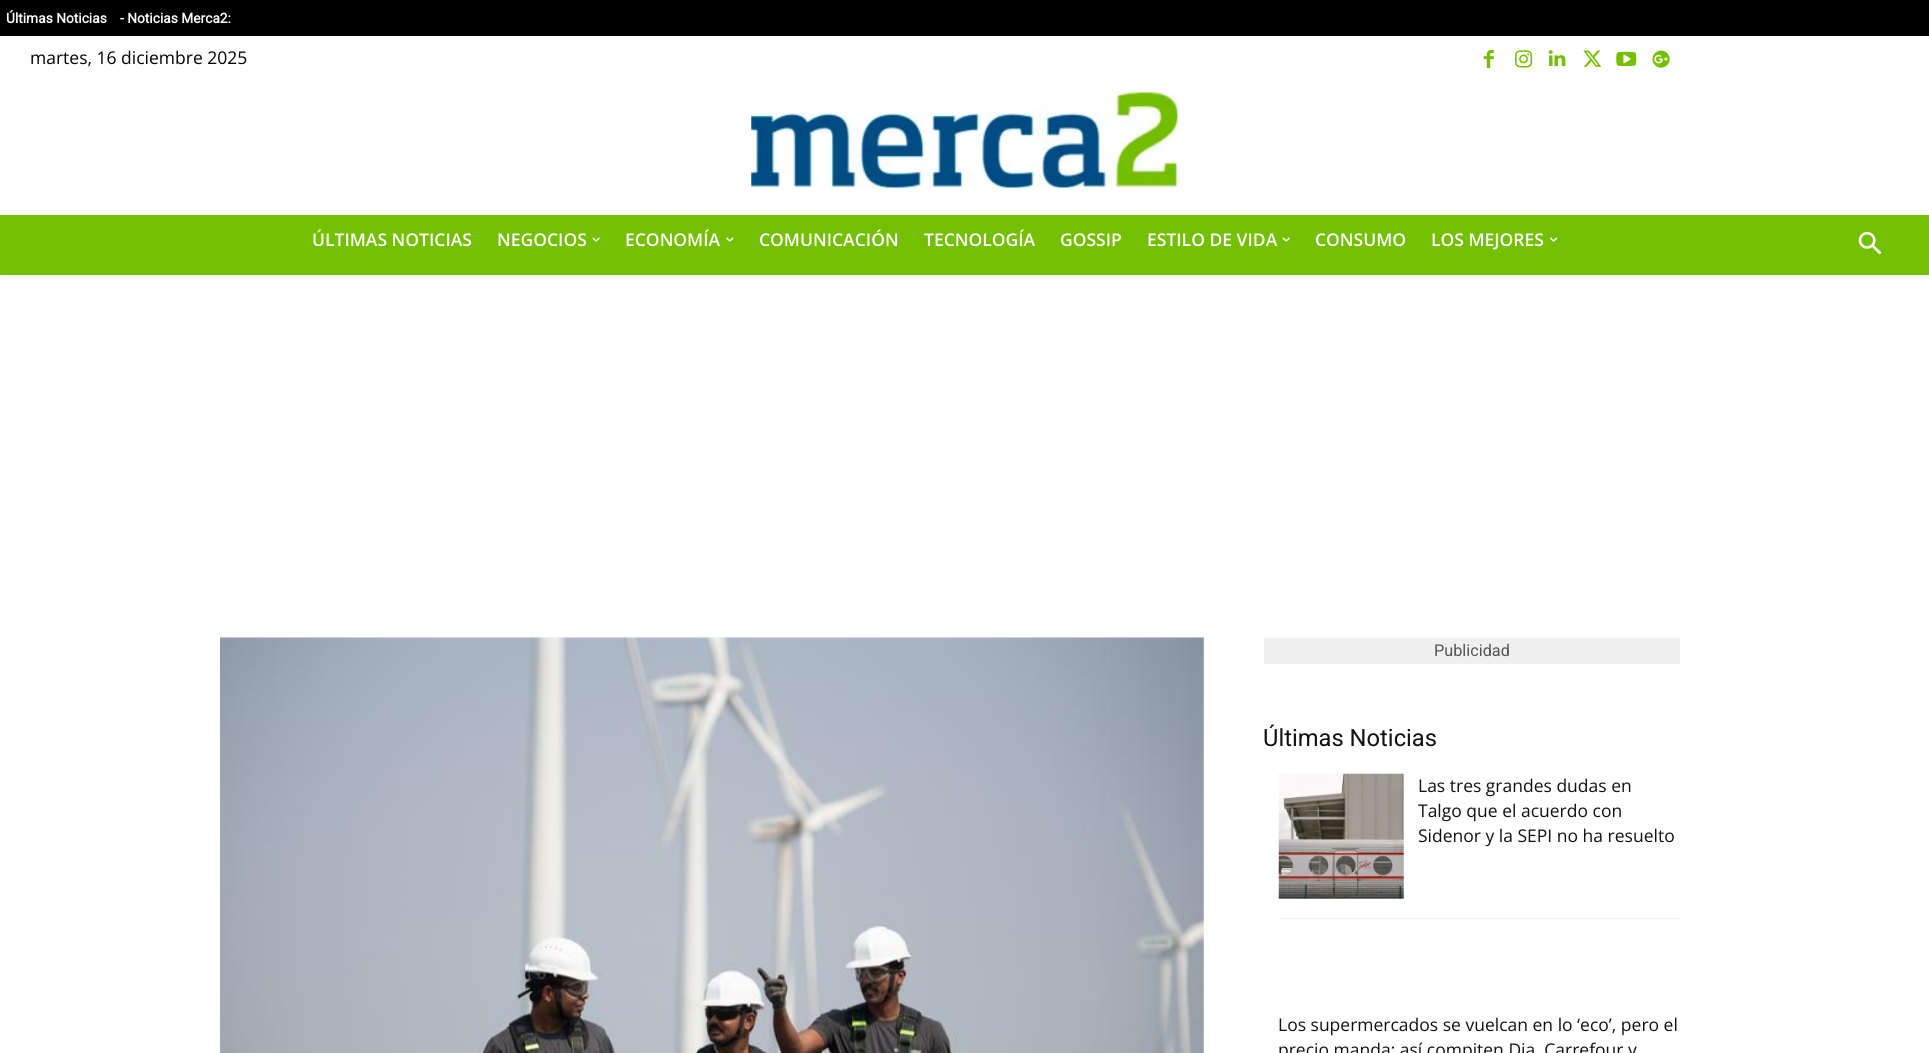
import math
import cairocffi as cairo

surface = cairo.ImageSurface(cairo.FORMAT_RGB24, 1929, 1053)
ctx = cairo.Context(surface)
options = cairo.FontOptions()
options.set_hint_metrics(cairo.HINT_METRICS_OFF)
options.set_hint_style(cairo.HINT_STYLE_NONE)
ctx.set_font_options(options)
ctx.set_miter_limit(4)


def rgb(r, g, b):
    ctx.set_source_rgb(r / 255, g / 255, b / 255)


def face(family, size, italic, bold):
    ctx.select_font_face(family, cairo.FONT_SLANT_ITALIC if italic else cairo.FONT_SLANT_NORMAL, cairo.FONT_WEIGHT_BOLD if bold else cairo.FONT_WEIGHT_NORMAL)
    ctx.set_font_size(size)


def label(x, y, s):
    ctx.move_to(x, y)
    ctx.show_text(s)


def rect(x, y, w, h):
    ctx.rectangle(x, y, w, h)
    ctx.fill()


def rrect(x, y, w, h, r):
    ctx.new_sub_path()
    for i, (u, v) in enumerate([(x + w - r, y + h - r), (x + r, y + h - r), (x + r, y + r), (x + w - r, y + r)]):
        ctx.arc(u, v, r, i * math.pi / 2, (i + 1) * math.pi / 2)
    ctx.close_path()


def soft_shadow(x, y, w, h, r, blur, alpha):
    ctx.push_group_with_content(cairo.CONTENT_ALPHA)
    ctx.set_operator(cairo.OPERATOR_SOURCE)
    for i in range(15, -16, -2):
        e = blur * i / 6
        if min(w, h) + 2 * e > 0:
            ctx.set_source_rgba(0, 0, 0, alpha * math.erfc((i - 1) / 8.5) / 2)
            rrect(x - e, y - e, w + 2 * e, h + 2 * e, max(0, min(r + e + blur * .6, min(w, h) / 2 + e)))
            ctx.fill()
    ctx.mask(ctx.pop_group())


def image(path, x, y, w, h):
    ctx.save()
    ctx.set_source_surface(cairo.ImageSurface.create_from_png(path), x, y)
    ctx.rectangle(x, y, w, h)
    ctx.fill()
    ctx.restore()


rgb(255, 255, 255)
ctx.paint()
rgb(0, 0, 0)
rect(0, 0, 1929, 36)
face('Roboto', 13.75, 0, 1)
rgb(255, 255, 255)
label(6, 23, 'Últimas Noticias')
label(120, 23, '- Noticias Merca2:')
face('Open Sans', 17.5, 0, 0)
rgb(0, 0, 0)
label(30, 64, 'martes, 16 diciembre 2025')
image('image0.png', 1483, 49, 11, 19)
image('image1.png', 1515, 50, 18, 18)
image('image2.png', 1548, 50, 18, 17)
image('image3.png', 1583, 50, 19, 17)
image('image4.png', 1616, 51, 21, 16)
image('image5.png', 1652, 50, 18, 18)
image('image6.png', 751, 92, 428, 97)
rgb(116, 191, 0)
rect(0, 215, 1929, 60)
ctx.save()
ctx.rectangle(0, 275, 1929, 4)
ctx.clip()
rgb(0, 0, 0)
soft_shadow(0, 218, 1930, 60, 0, 2.5, 0.06)
ctx.restore()
face('Open Sans SemiBold', 17.5, 0, 0)
rgb(255, 255, 255)
label(312, 246, 'ÚLTIMAS NOTICIAS')
label(497, 246, 'NEGOCIOS')
image('image7.png', 592, 237, 8, 5)
label(625, 246, 'ECONOMÍA')
image('image8.png', 726, 237, 8, 5)
label(759, 246, 'COMUNICACIÓN')
label(924, 246, 'TECNOLOGÍA')
label(1060, 246, 'GOSSIP')
label(1147, 246, 'ESTILO DE VIDA')
image('image7.png', 1282, 237, 8, 5)
label(1315, 246, 'CONSUMO')
label(1431, 246, 'LOS MEJORES')
image('image9.png', 1550, 237, 8, 5)
image('image10.png', 1858, 231, 23, 24)
image('image11.png', 220, 637, 984, 416)
rgb(240, 240, 240)
rect(1264, 638, 416, 26)
face('Roboto', 16.25, 0, 0)
rgb(85, 85, 85)
label(1434, 656, 'Publicidad')
face('Roboto', 23.75, 0, 0)
rgb(17, 17, 17)
label(1263, 746, 'Últimas Noticias')
rgb(240, 240, 240)
rect(1279, 918, 401, 1)
image('image12.png', 1278, 773, 126, 126)
face('Open Sans', 17.5, 0, 0)
rgb(17, 17, 17)
label(1418, 792, 'Las tres grandes dudas en')
label(1418, 817, 'Talgo que el acuerdo con')
label(1418, 842, 'Sidenor y la SEPI no ha resuelto')
label(1278, 1031, 'Los supermercados se vuelcan en lo ‘eco’, pero el')
label(1278, 1056, 'precio manda: así compiten Dia, Carrefour y')
surface.write_to_png('render.png')
